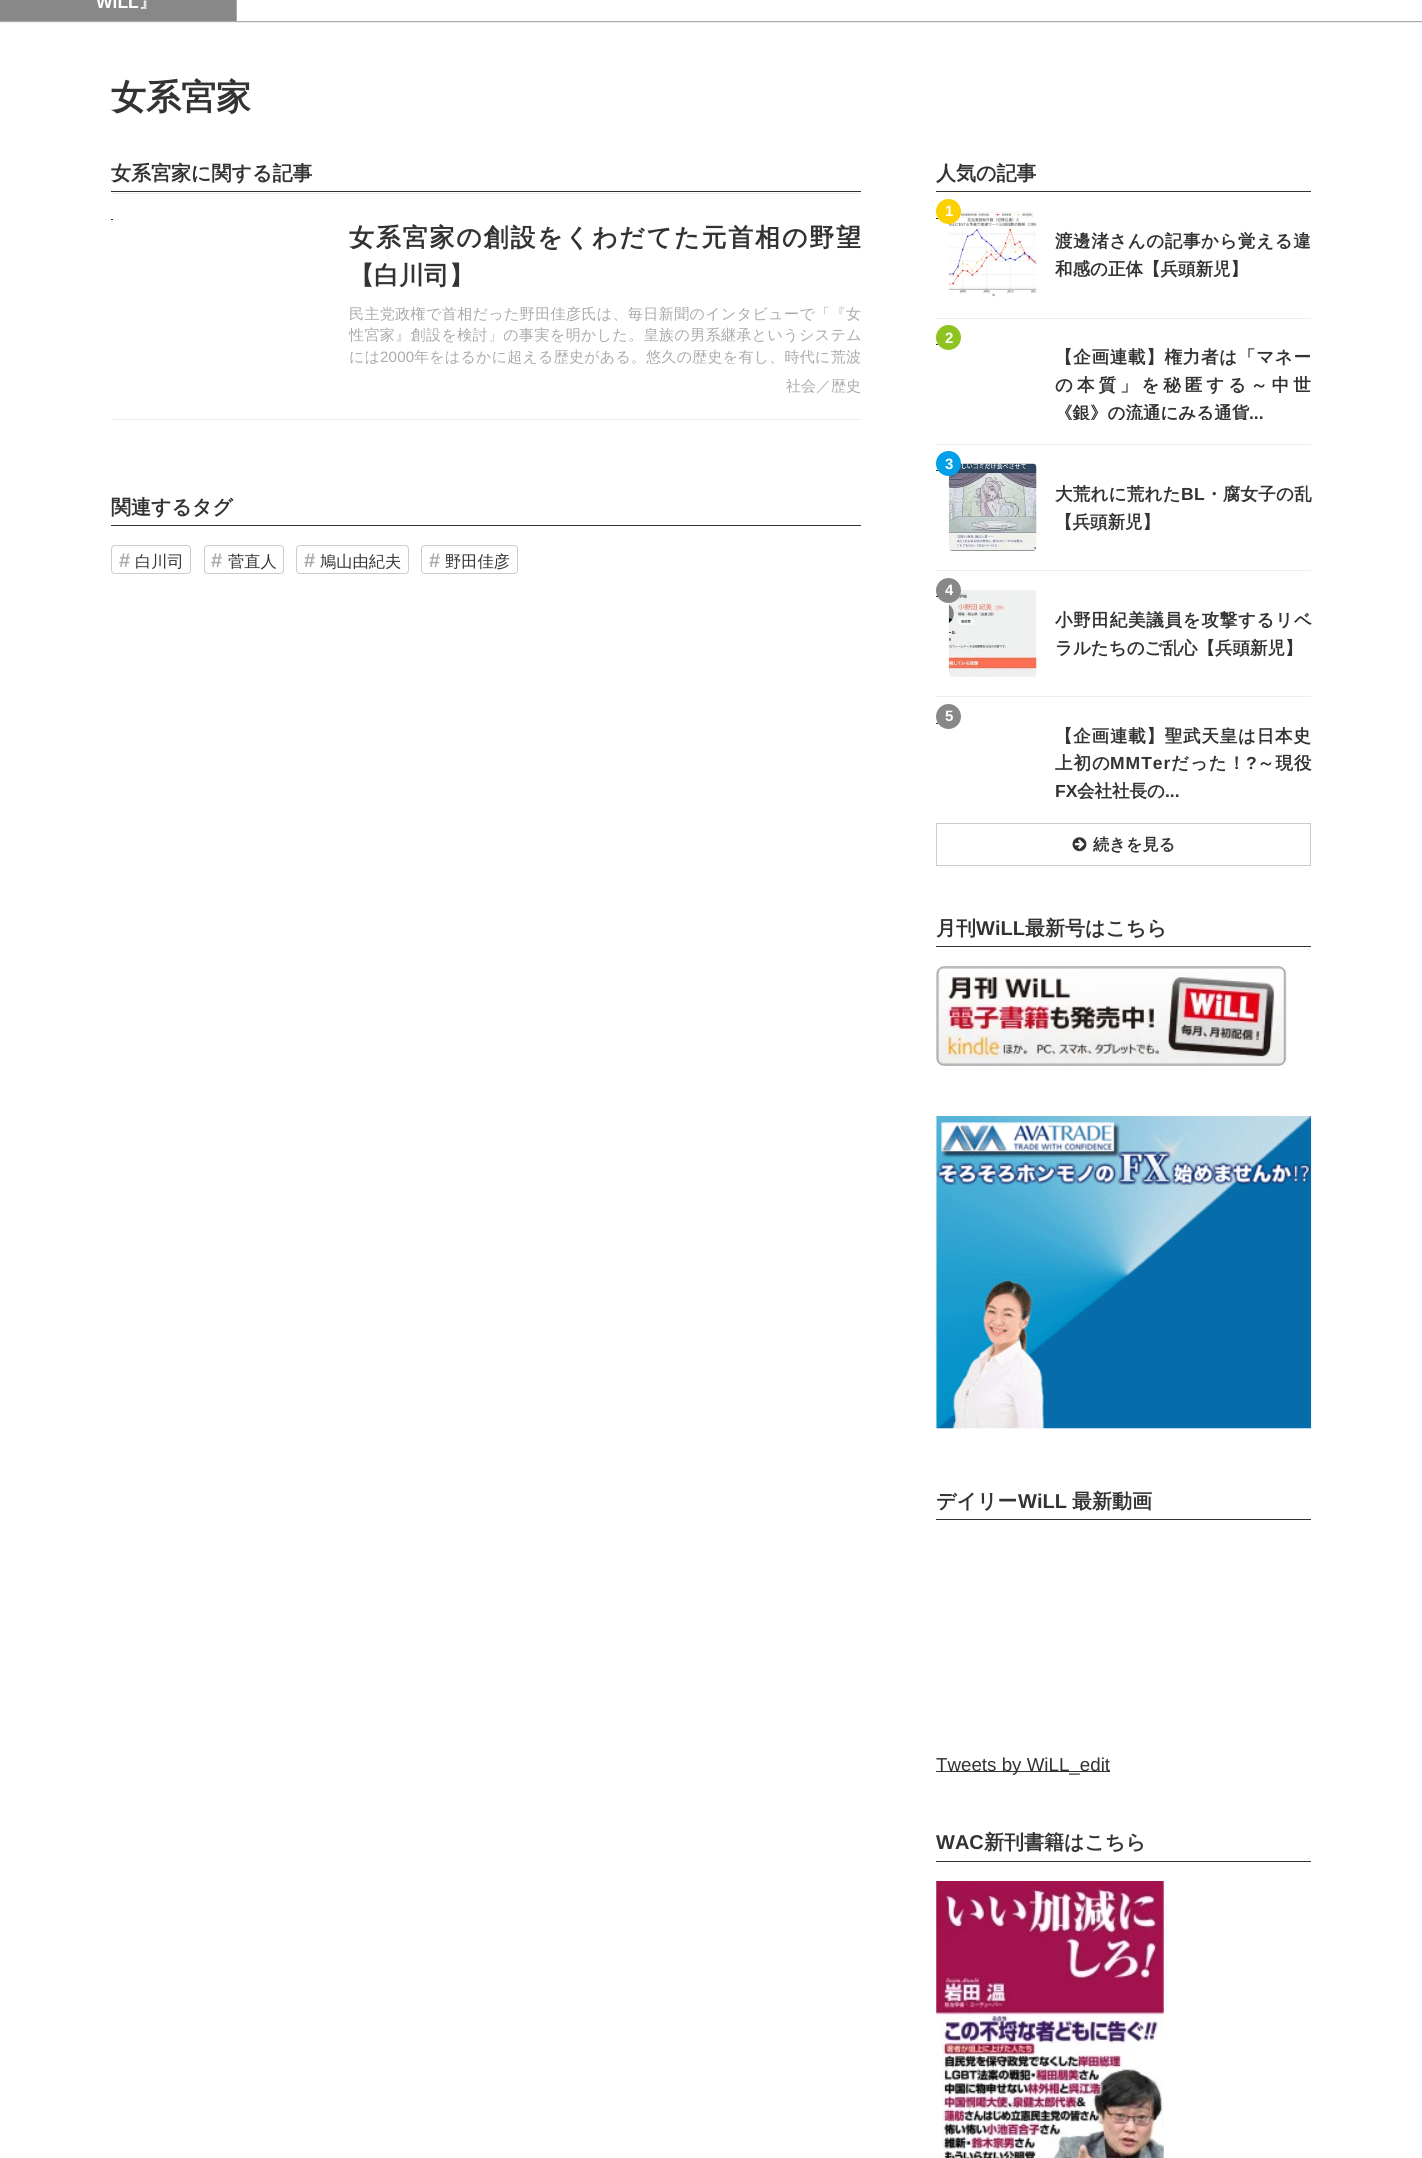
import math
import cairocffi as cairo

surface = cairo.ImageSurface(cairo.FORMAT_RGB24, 1422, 2158)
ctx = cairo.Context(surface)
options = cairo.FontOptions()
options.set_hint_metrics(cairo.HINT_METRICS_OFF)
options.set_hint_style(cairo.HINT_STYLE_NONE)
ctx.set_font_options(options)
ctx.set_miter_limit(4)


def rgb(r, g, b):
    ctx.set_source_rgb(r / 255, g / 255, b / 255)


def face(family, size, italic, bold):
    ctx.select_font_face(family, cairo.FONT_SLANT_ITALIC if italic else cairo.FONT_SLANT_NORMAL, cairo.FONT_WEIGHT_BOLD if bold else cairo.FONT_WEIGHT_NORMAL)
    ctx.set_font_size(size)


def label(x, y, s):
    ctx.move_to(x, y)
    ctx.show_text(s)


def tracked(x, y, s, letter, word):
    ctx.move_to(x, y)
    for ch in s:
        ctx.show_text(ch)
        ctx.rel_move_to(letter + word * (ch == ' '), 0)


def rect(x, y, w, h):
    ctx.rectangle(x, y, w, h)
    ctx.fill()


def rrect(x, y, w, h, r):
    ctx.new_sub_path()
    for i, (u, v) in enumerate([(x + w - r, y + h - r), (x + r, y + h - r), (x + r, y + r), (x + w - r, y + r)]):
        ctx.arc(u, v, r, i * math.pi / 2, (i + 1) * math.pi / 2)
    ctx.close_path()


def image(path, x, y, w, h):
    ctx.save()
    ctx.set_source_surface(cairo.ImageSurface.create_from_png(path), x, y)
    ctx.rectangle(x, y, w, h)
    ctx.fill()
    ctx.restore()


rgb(255, 255, 255)
ctx.paint()
rgb(238, 238, 238)
rect(0, 22, 1422, 1)
rgb(170, 170, 170)
rect(0, 21, 1422, 1)
rect(236, 0, 1, 21)
rgb(136, 136, 136)
rect(0, 0, 236, 21)
face('Liberation Sans', 17.5, 0, 1)
rgb(255, 255, 255)
label(96, 8, 'WiLL')
ctx.save()
ctx.rectangle(13, 0, 211, 9)
ctx.clip()
face('WenQuanYi Zen Hei', 17.5, 0, 1)
label(139, 8, '』')
ctx.restore()
face('WenQuanYi Zen Hei', 35, 0, 1)
rgb(51, 51, 51)
label(111, 109, '女系宮家')
rect(111, 191, 750, 1)
face('WenQuanYi Zen Hei', 20, 0, 1)
label(111, 180, '女系宮家に関する記事')
rgb(238, 238, 238)
rect(111, 193, 750, 1)
rect(111, 419, 750, 1)
rgb(51, 51, 51)
rect(111, 219, 2, 1)
face('WenQuanYi Zen Hei', 25, 0, 1)
tracked(349, 246, '女系宮家の創設をくわだてた元首相の野望', 1.8, 0)
label(349, 284, '【白川司】')
face('WenQuanYi Zen Hei Medium', 15, 0, 0)
rgb(170, 170, 170)
tracked(349, 319, '民主党政権で首相だった野田佳彦氏は、毎日新聞のインタビューで「『女', 0.4, 0)
tracked(349, 340, '性宮家』創設を検討」の事実を明かした。皇族の男系継承というシステム', 0.4, 0)
ctx.save()
ctx.rectangle(349, 304, 512, 60)
ctx.clip()
tracked(349, 362, 'には', 0.25, 0)
ctx.restore()
face('Liberation Sans', 15, 0, 0)
tracked(380, 362, '2000', 0.25, 0)
ctx.save()
ctx.rectangle(349, 304, 512, 60)
ctx.clip()
face('WenQuanYi Zen Hei Medium', 15, 0, 0)
tracked(414, 362, '年をはるかに超える歴史がある。悠久の歴史を有し、時代に荒波', 0.25, 0)
ctx.restore()
ctx.save()
ctx.rectangle(111, 379, 750, 15)
ctx.clip()
face('WenQuanYi Zen Hei Medium', 15, 0, 0)
label(786, 391, '社会／歴史')
ctx.restore()
rgb(51, 51, 51)
rect(111, 525, 750, 1)
face('WenQuanYi Zen Hei', 20, 0, 1)
label(111, 514, '関連するタグ')
rrect(111.5, 545.5, 79, 28, 3.5)
rgb(204, 204, 204)
ctx.set_line_width(1)
ctx.stroke()
face('Liberation Sans', 20, 0, 1)
rgb(170, 170, 170)
label(119, 567, '#')
face('WenQuanYi Zen Hei Medium', 16.25, 0, 0)
rgb(51, 51, 51)
label(135, 567, '白川司')
rrect(204.5, 545.5, 79, 28, 3.5)
rgb(204, 204, 204)
ctx.stroke()
face('Liberation Sans', 20, 0, 1)
rgb(170, 170, 170)
label(211, 567, '#')
face('WenQuanYi Zen Hei Medium', 16.25, 0, 0)
rgb(51, 51, 51)
label(228, 567, '菅直人')
rrect(296.5, 545.5, 112, 28, 3.5)
rgb(204, 204, 204)
ctx.stroke()
face('Liberation Sans', 20, 0, 1)
rgb(170, 170, 170)
label(304, 567, '#')
face('WenQuanYi Zen Hei Medium', 16.25, 0, 0)
rgb(51, 51, 51)
label(320, 567, '鳩山由紀夫')
rrect(421.5, 545.5, 96, 28, 3.5)
rgb(204, 204, 204)
ctx.stroke()
face('Liberation Sans', 20, 0, 1)
rgb(170, 170, 170)
label(429, 567, '#')
face('WenQuanYi Zen Hei Medium', 16.25, 0, 0)
rgb(51, 51, 51)
label(445, 567, '野田佳彦')
rect(936, 191, 375, 1)
face('WenQuanYi Zen Hei', 20, 0, 1)
label(936, 180, '人気の記事')
rgb(238, 238, 238)
rect(936, 318, 375, 1)
image('image0.png', 948, 211, 89, 86)
rgb(253, 208, 0)
ctx.arc(948.5, 211.5, 12.5, 0, 2 * math.pi)
ctx.fill()
face('Liberation Sans', 15, 0, 1)
rgb(255, 255, 255)
label(945, 216, '1')
rgb(51, 51, 51)
rect(936, 218, 2, 1)
face('WenQuanYi Zen Hei', 17.5, 0, 1)
tracked(1055, 247, '渡邊渚さんの記事から覚える違', 0.6, 0)
label(1055, 275, '和感の正体【兵頭新児】')
rgb(238, 238, 238)
rect(936, 444, 375, 1)
rgb(143, 195, 31)
ctx.new_path()
ctx.arc(948.5, 337.5, 12.5, 0, 2 * math.pi)
ctx.fill()
face('Liberation Sans', 15, 0, 1)
rgb(255, 255, 255)
label(945, 343, '2')
rgb(51, 51, 51)
rect(936, 344, 2, 1)
face('WenQuanYi Zen Hei', 17.5, 0, 1)
tracked(1055, 363, '【企画連載】権力者は「マネー', 0.75, 0)
tracked(1055, 391, 'の本質」を秘匿する～中世', 4, 0)
ctx.save()
ctx.rectangle(1055, 343, 256, 77)
ctx.clip()
label(1055, 419, '《銀》の流通にみる通貨')
ctx.restore()
face('Liberation Sans', 17.5, 0, 1)
label(1249, 419, '...')
rgb(238, 238, 238)
rect(936, 570, 375, 1)
image('image1.png', 948, 463, 89, 88)
rgb(0, 160, 233)
ctx.arc(948.5, 463.5, 12.5, 0, 2 * math.pi)
ctx.fill()
face('Liberation Sans', 15, 0, 1)
rgb(255, 255, 255)
label(945, 469, '3')
rgb(51, 51, 51)
rect(936, 470, 2, 1)
face('WenQuanYi Zen Hei', 17.5, 0, 1)
tracked(1055, 500, '大荒れに荒れた', 0.25, 0)
face('Liberation Sans', 17.5, 0, 1)
tracked(1181, 500, 'BL', 0.25, 0)
face('WenQuanYi Zen Hei', 17.5, 0, 1)
tracked(1205, 500, '・腐女子の乱', 0.25, 0)
label(1055, 528, '【兵頭新児】')
rgb(238, 238, 238)
rect(936, 696, 375, 1)
image('image2.png', 948, 590, 89, 87)
rgb(136, 136, 136)
ctx.arc(948.5, 590.5, 12.5, 0, 2 * math.pi)
ctx.fill()
face('Liberation Sans', 15, 0, 1)
rgb(255, 255, 255)
label(945, 595, '4')
rgb(51, 51, 51)
rect(936, 596, 2, 1)
face('WenQuanYi Zen Hei', 17.5, 0, 1)
tracked(1055, 626, '小野田紀美議員を攻撃するリベ', 0.75, 0)
label(1055, 654, 'ラルたちのご乱心【兵頭新児】')
rgb(136, 136, 136)
ctx.new_path()
ctx.arc(948.5, 716.5, 12.5, 0, 2 * math.pi)
ctx.fill()
face('Liberation Sans', 15, 0, 1)
rgb(255, 255, 255)
label(945, 721, '5')
rgb(51, 51, 51)
rect(936, 723, 2, 1)
face('WenQuanYi Zen Hei', 17.5, 0, 1)
tracked(1055, 742, '【企画連載】聖武天皇は日本史', 0.8, 0)
tracked(1055, 769, '上初の', 1, 0)
face('Liberation Sans', 17.5, 0, 1)
tracked(1110, 769, 'MMTer', 1, 0)
face('WenQuanYi Zen Hei', 17.5, 0, 1)
tracked(1171, 769, 'だった！', 1, 0)
face('Liberation Sans', 17.5, 0, 1)
tracked(1246, 769, '?', 1, 0)
face('WenQuanYi Zen Hei', 17.5, 0, 1)
tracked(1257, 769, '～現役', 1, 0)
face('Liberation Sans', 17.5, 0, 1)
label(1055, 797, 'FX')
ctx.save()
ctx.rectangle(1055, 721, 256, 78)
ctx.clip()
face('WenQuanYi Zen Hei', 17.5, 0, 1)
label(1077, 797, '会社社長の')
ctx.restore()
label(1165, 797, '...')
ctx.rectangle(936.5, 823.5, 374, 42)
rgb(204, 204, 204)
ctx.stroke()
image('image3.png', 1072, 837, 15, 15)
face('WenQuanYi Zen Hei', 16.25, 0, 1)
rgb(51, 51, 51)
label(1093, 850, '続きを見る')
rect(936, 946, 375, 1)
face('WenQuanYi Zen Hei', 20, 0, 1)
label(936, 935, '月刊')
face('Liberation Sans', 20, 0, 1)
label(976, 935, 'WiLL')
face('WenQuanYi Zen Hei', 20, 0, 1)
label(1025, 935, '最新号はこちら')
image('image4.png', 936, 966, 351, 100)
image('image5.png', 936, 1116, 376, 313)
rect(936, 1519, 375, 1)
label(936, 1508, 'デイリー')
face('Liberation Sans', 20, 0, 1)
label(1018, 1508, 'WiLL')
face('WenQuanYi Zen Hei', 20, 0, 1)
label(1072, 1508, '最新動画')
rect(936, 1771, 174, 1)
face('Liberation Sans', 18.75, 0, 0)
label(936, 1771, 'Tweets by WiLL_edit')
rect(936, 1861, 375, 1)
face('Liberation Sans', 20, 0, 1)
label(936, 1849, 'WAC')
face('WenQuanYi Zen Hei', 20, 0, 1)
label(984, 1849, '新刊書籍はこちら')
image('image6.png', 936, 1881, 228, 277)
surface.write_to_png('render.png')
